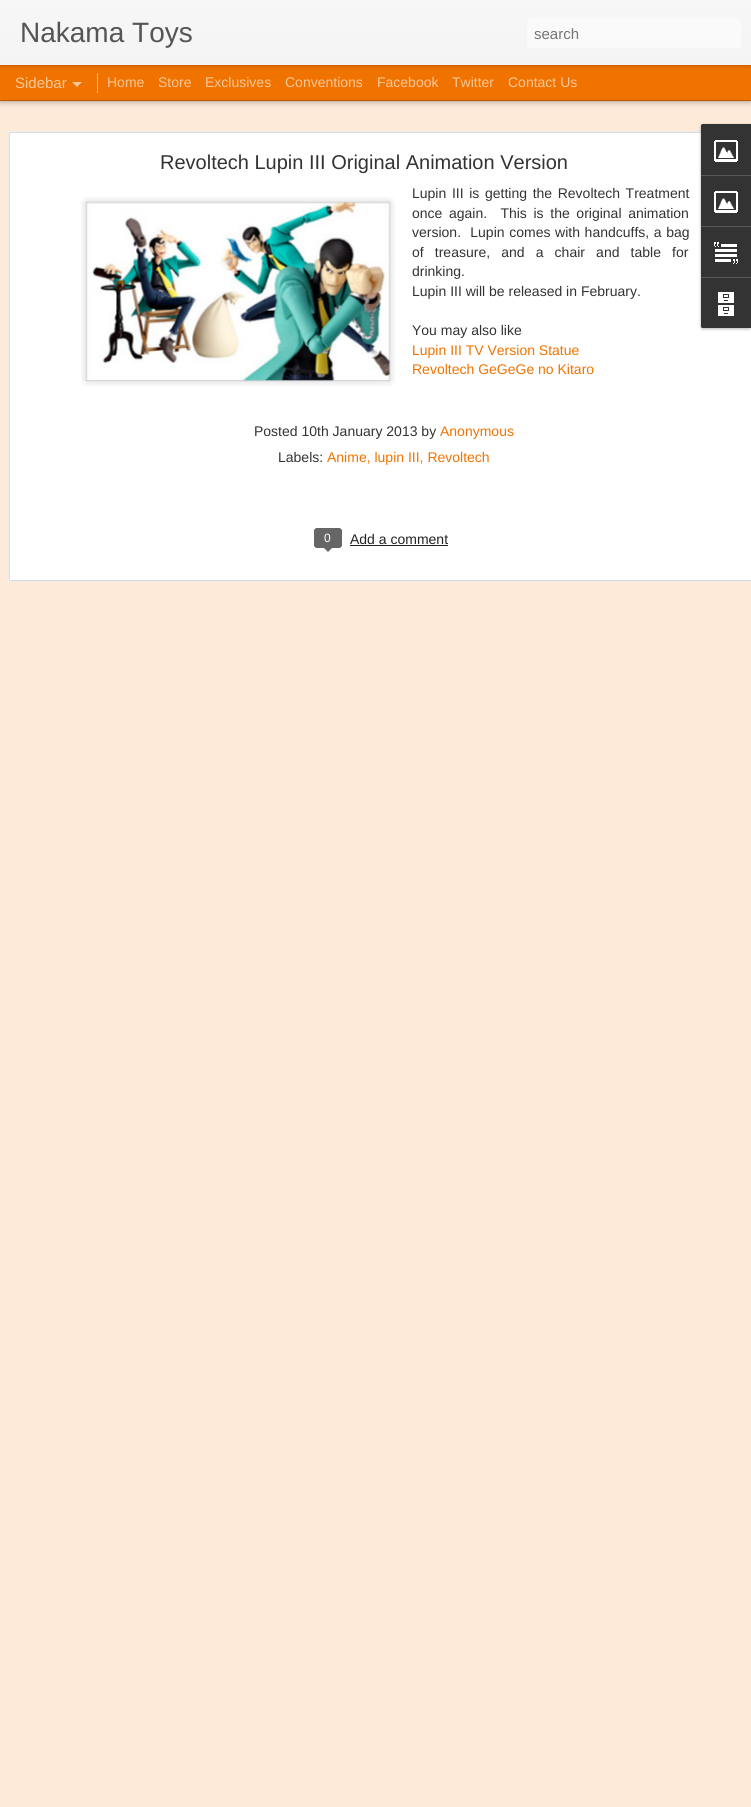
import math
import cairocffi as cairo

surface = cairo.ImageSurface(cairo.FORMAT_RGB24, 751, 1807)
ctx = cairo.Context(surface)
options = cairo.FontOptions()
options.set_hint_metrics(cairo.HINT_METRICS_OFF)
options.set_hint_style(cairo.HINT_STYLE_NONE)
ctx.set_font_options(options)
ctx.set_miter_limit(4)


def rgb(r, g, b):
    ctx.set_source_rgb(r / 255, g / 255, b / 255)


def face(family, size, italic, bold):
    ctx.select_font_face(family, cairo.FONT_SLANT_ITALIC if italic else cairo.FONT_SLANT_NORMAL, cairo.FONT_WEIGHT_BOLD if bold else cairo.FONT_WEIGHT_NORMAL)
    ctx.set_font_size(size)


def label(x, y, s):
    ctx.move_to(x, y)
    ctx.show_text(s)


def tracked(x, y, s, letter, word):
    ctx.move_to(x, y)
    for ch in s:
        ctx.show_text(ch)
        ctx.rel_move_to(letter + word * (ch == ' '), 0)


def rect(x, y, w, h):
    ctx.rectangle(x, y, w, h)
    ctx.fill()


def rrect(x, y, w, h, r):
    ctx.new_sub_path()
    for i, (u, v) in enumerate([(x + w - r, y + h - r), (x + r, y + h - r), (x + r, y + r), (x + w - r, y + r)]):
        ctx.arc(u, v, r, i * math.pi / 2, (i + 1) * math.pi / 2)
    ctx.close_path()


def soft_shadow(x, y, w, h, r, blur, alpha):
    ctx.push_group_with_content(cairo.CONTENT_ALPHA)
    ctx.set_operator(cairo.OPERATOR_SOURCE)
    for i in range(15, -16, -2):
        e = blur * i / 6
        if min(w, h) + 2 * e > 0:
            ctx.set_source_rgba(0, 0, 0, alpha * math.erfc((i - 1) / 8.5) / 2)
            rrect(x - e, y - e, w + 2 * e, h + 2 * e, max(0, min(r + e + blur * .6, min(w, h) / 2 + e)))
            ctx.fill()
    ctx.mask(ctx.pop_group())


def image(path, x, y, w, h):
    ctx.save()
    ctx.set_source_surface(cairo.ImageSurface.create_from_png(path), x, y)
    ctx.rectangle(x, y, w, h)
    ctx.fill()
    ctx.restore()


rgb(240, 115, 0)
ctx.paint()
rgb(253, 234, 217)
rect(0, 101, 751, 1706)
rgb(0, 0, 0)
soft_shadow(0, 65, 751, 35, 0, 4, 0.5)
rgb(240, 115, 0)
rect(0, 65, 751, 35)
rgb(248, 185, 128)
rect(97, 73, 1, 20)
rgb(0, 0, 0)
soft_shadow(0, 0, 751, 65, 0, 2.5, 0.3)
gradient = cairo.LinearGradient(0, 0, 0, 65)
gradient.add_color_stop_rgba(0, 0.969, 0.969, 0.969, 1)
gradient.add_color_stop_rgba(1, 0.957, 0.957, 0.957, 1)
ctx.set_source(gradient)
rect(0, 0, 751, 65)
face('Liberation Sans', 28, 0, 0)
rgb(85, 85, 85)
label(20, 42, 'Nakama Toys')
rgb(250, 250, 250)
rrect(527, 18, 214, 30, 3)
ctx.fill()
face('Liberation Sans', 15, 0, 0)
rgb(117, 117, 117)
label(534, 39, 'search')
rgb(249, 199, 153)
label(15, 88, 'Sidebar')
ctx.new_path()
ctx.move_to(72, 82)
ctx.line_to(82, 82)
ctx.line_to(77, 87)
ctx.close_path()
ctx.fill()
face('Liberation Sans', 14, 0, 0)
label(107, 87, 'Home')
label(158, 87, 'Store')
label(205, 87, 'Exclusives')
label(285, 87, 'Conventions')
label(377, 87, 'Facebook')
label(452, 87, 'Twitter')
label(508, 87, 'Contact Us')
rgb(255, 255, 255)
rect(8, 131, 743, 451)
image('image0.png', 8, 131, 743, 451)
face('Liberation Sans', 20, 0, 0)
rgb(51, 51, 51)
label(160, 169, 'Revoltech Lupin III Original Animation Version')
face('Liberation Sans', 14, 0, 0)
tracked(412, 198, 'Lupin III is getting the Revoltech Treatment', 0, 1.75)
image('image1.png', 81, 197, 314, 189)
image('image2.png', 85, 201, 306, 181)
tracked(412, 218, 'once again.  This is the original animation', 0, 2.75)
tracked(412, 237, 'version.  Lupin comes with handcuffs, a bag', 0, 0.75)
tracked(412, 257, 'of treasure, and a chair and table for', 0, 7.25)
label(412, 276, 'drinking.')
label(412, 296, 'Lupin III will be released in February.')
label(412, 335, 'You may also like')
rgb(240, 115, 0)
label(412, 355, 'Lupin III TV Version Statue')
label(412, 374, 'Revoltech GeGeGe no Kitaro')
rgb(51, 51, 51)
label(254, 436, 'Posted 10th January 2013 by')
rgb(240, 115, 0)
label(440, 436, 'Anonymous')
rgb(51, 51, 51)
label(278, 462, 'Labels:')
rgb(240, 115, 0)
label(327, 462, 'Anime, lupin III, Revoltech')
rgb(102, 102, 102)
rrect(314.5, 528.5, 27, 19, 2.5)
ctx.fill_preserve()
ctx.set_line_width(1)
ctx.stroke()
face('Liberation Sans', 12, 0, 0)
rgb(255, 255, 255)
label(324, 542, '0')
rgb(102, 102, 102)
ctx.new_path()
ctx.move_to(323, 547)
ctx.line_to(333, 547)
ctx.line_to(328, 552)
ctx.close_path()
ctx.fill()
face('Liberation Sans', 14, 0, 0)
rgb(34, 34, 34)
label(350, 544, 'Add a comment')
rect(350, 545, 98, 1)
rgb(0, 0, 0)
soft_shadow(701, 125, 50, 204, 2, 1.5, 0.3)
rgb(51, 51, 51)
ctx.new_path()
ctx.move_to(703, 124)
ctx.line_to(751, 124)
ctx.line_to(751, 328)
ctx.line_to(703, 328)
ctx.curve_to(702, 328, 701, 327, 701, 326)
ctx.line_to(701, 126)
ctx.curve_to(701, 125, 702, 124, 703, 124)
ctx.close_path()
ctx.fill()
ctx.new_path()
ctx.move_to(703, 124)
ctx.line_to(751, 124)
ctx.line_to(751, 175)
ctx.line_to(701, 175)
ctx.line_to(701, 126)
ctx.curve_to(701, 125, 702, 124, 703, 124)
ctx.close_path()
ctx.fill()
image('image3.png', 714, 140, 24, 22)
rgb(88, 88, 88)
rect(701, 175, 50, 1)
image('image3.png', 714, 191, 24, 22)
rect(701, 226, 50, 1)
image('image4.png', 714, 242, 24, 22)
rgb(51, 51, 51)
ctx.new_path()
ctx.move_to(701, 277)
ctx.line_to(751, 277)
ctx.line_to(751, 328)
ctx.line_to(703, 328)
ctx.curve_to(702, 328, 701, 327, 701, 326)
ctx.close_path()
ctx.fill()
rgb(88, 88, 88)
rect(701, 277, 50, 1)
image('image5.png', 718, 292, 16, 24)
surface.write_to_png('render.png')
